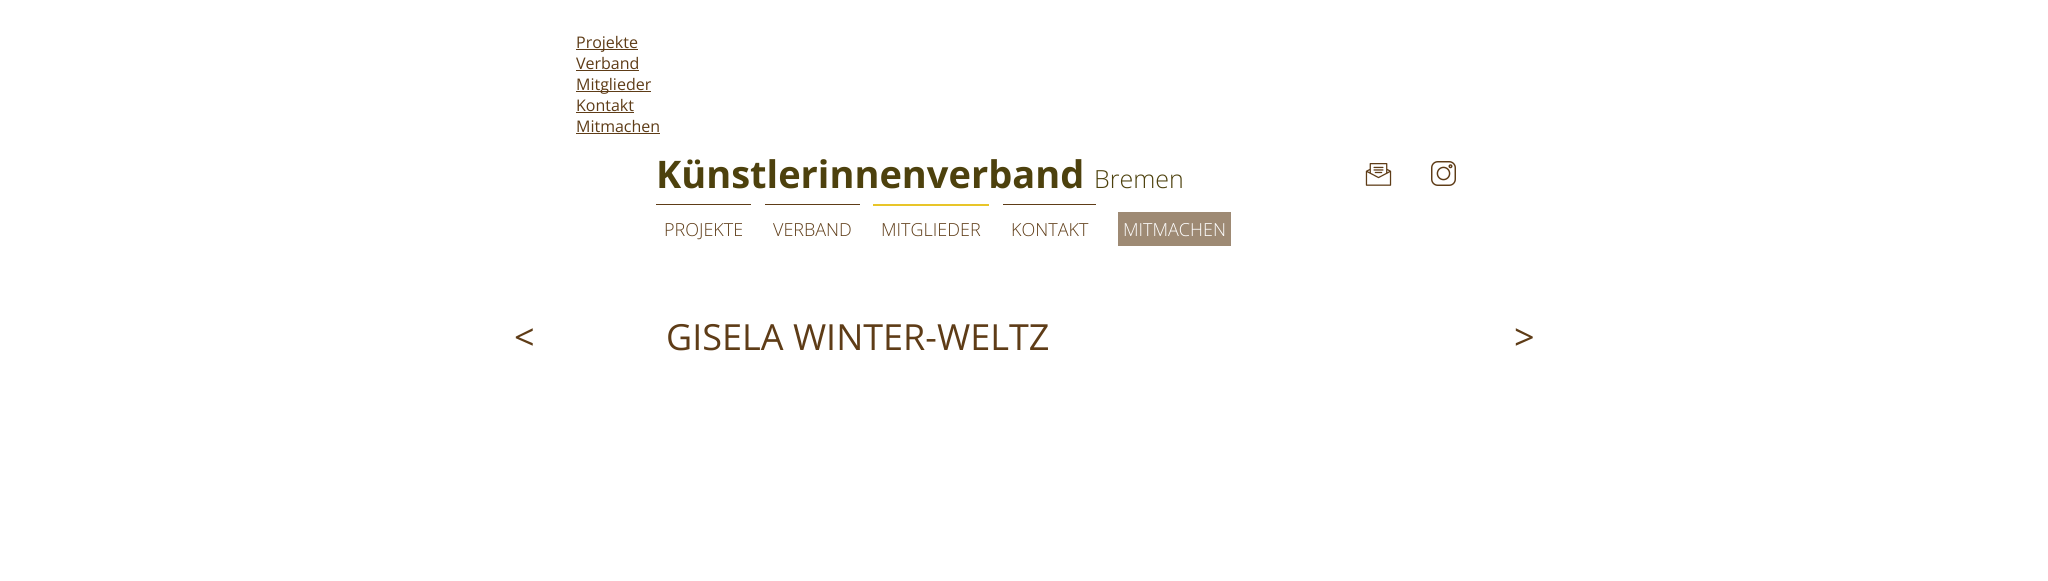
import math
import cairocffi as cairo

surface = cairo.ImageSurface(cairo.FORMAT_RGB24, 2048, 581)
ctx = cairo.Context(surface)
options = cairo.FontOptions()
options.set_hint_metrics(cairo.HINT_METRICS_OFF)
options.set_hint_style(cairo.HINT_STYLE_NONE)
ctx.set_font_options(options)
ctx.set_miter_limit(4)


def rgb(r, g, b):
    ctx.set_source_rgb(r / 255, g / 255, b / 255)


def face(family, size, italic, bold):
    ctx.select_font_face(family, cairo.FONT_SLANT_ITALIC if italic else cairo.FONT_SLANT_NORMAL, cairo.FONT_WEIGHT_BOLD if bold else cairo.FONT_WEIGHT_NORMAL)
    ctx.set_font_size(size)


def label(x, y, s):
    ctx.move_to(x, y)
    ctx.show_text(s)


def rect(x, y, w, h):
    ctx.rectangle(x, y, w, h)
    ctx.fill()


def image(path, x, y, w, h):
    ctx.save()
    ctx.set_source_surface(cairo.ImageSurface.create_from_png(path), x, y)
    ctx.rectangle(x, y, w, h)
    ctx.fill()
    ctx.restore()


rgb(255, 255, 255)
ctx.paint()
rgb(94, 60, 23)
rect(576, 49, 62, 1)
face('Open Sans', 16, 0, 0)
label(576, 48, 'Projekte')
label(576, 69, 'Verband')
rect(576, 70, 63, 1)
rect(576, 91, 75, 1)
label(576, 90, 'Mitglieder')
label(576, 111, 'Kontakt')
rect(576, 112, 58, 1)
label(576, 132, 'Mitmachen')
rect(576, 133, 84, 1)
face('Open Sans', 38, 0, 1)
rgb(77, 65, 13)
label(656, 188, 'Künstlerinnenverband')
face('Open Sans Light', 25, 0, 0)
label(1094, 188, 'Bremen')
image('image0.png', 1365, 163, 27, 23)
image('image1.png', 1431, 161, 25, 25)
rgb(94, 60, 23)
rect(656, 204, 95, 1)
face('Open Sans Light', 18, 0, 0)
label(664, 236, 'PROJEKTE')
rect(765, 204, 95, 1)
label(773, 236, 'VERBAND')
rgb(232, 197, 41)
rect(873, 204, 116, 2)
rgb(94, 60, 23)
label(881, 236, 'MITGLIEDER')
rect(1003, 204, 93, 1)
label(1011, 236, 'KONTAKT')
rgb(158, 138, 116)
rect(1118, 212, 113, 34)
rgb(255, 255, 255)
label(1123, 236, 'MITMACHEN')
face('Open Sans', 36, 0, 0)
rgb(94, 60, 23)
label(514, 350, '<')
label(666, 350, 'GISELA WINTER-WELTZ')
label(1514, 350, '>')
surface.write_to_png('render.png')
